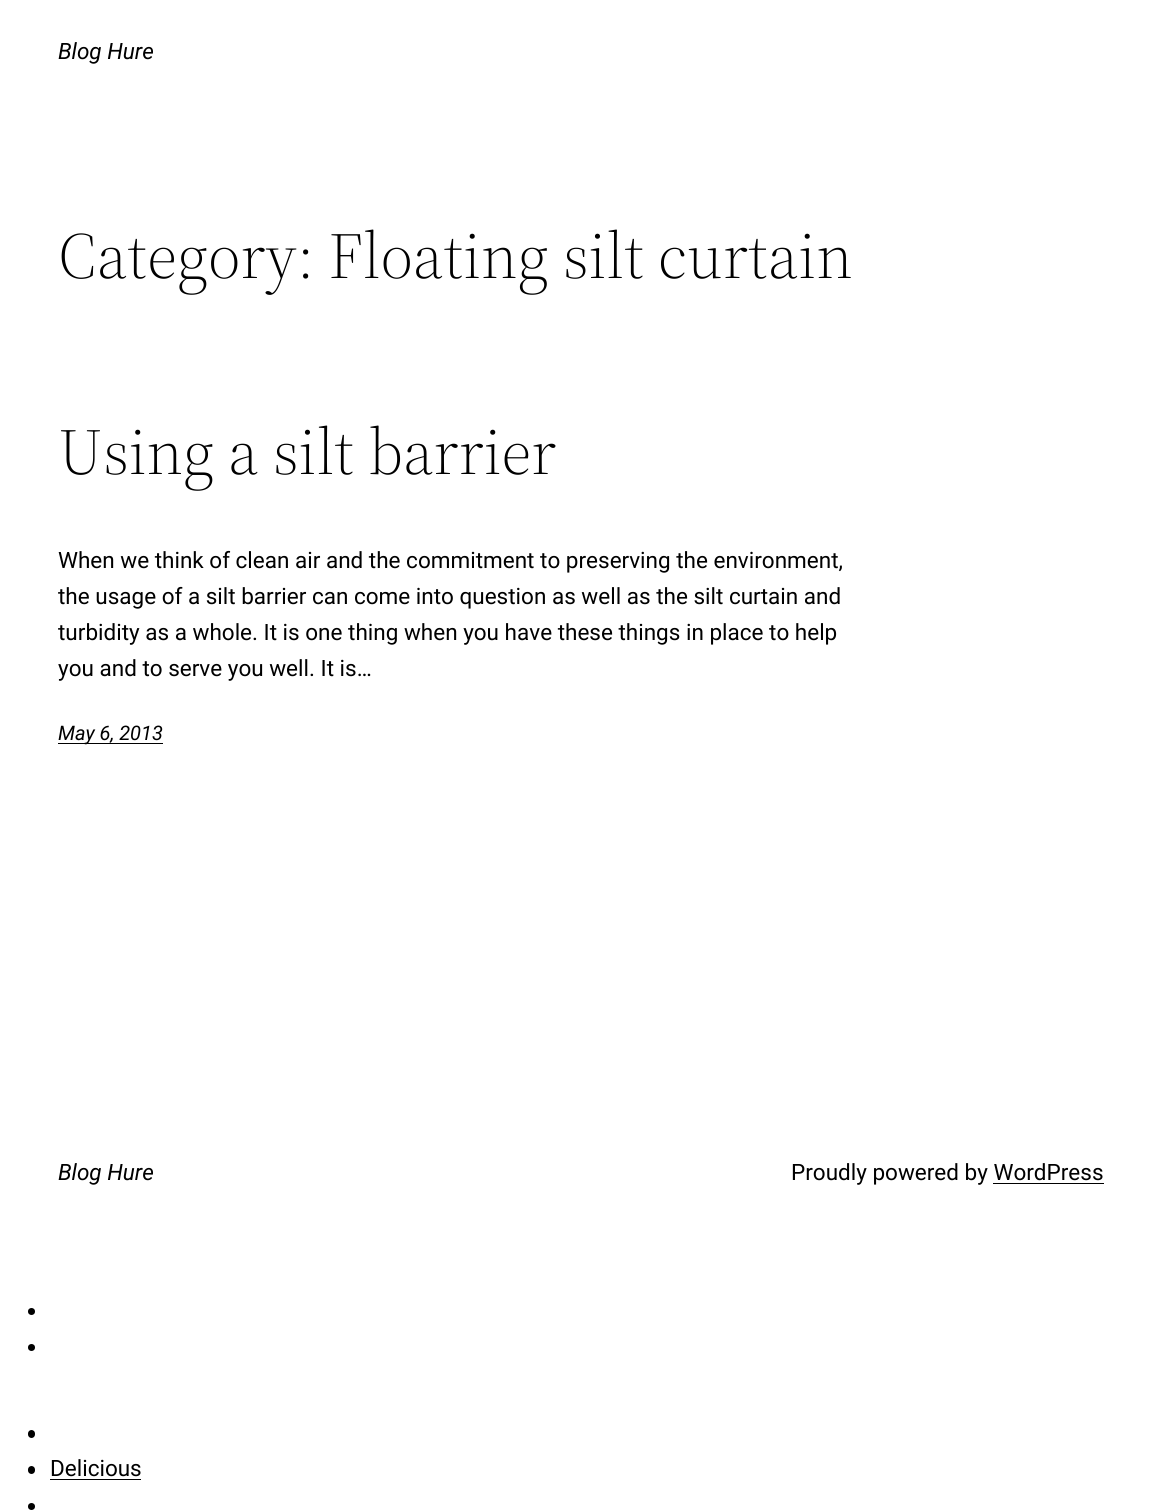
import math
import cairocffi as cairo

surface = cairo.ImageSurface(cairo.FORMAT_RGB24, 1161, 1510)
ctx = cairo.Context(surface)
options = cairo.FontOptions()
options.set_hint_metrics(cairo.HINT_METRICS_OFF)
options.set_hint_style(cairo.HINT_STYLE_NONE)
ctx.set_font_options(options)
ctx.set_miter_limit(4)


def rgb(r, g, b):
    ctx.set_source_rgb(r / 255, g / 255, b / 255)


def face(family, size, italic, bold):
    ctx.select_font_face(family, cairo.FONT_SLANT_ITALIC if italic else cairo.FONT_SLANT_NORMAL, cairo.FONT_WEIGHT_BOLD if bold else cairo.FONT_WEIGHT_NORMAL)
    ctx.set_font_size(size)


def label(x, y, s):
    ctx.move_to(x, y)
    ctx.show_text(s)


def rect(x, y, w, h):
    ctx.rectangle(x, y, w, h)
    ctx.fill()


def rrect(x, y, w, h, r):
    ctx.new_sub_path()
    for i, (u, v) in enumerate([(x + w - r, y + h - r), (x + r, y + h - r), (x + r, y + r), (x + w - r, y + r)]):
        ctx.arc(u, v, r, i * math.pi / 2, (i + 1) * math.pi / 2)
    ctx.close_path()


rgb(255, 255, 255)
ctx.paint()
face('Roboto', 22.5, 1, 0)
rgb(0, 0, 0)
label(58, 59, 'Blog Hure')
face('Source Serif 4 Light', 65, 0, 0)
label(58, 278, 'Category: Floating silt curtain')
label(58, 474, 'Using a silt barrier')
face('Roboto', 22.5, 0, 0)
label(58, 568, 'When we think of clean air and the commitment to preserving the environment,')
label(58, 604, 'the usage of a silt barrier can come into question as well as the silt curtain and')
label(58, 640, 'turbidity as a whole. It is one thing when you have these things in place to help')
label(58, 676, 'you and to serve you well. It is…')
rect(58, 743, 105, 1)
face('Roboto', 20, 1, 0)
label(58, 740, 'May 6, 2013')
face('Roboto', 22.5, 1, 0)
label(58, 1180, 'Blog Hure')
face('Roboto', 22.5, 0, 0)
label(791, 1180, 'Proudly powered by WordPress')
rect(993, 1183, 111, 1)
ctx.new_path()
ctx.arc(31.5, 1311.5, 3.5, 0, 2 * math.pi)
ctx.fill()
ctx.arc(31.5, 1347.5, 3.5, 0, 2 * math.pi)
ctx.fill()
rrect(28, 1430, 7, 8, 3.5)
ctx.fill()
rrect(28, 1466, 7, 8, 3.5)
ctx.fill()
label(50, 1476, 'Delicious')
rect(50, 1479, 91, 1)
ctx.new_path()
ctx.arc(31.5, 1506.5, 3.5, 0, 2 * math.pi)
ctx.fill()
surface.write_to_png('render.png')
